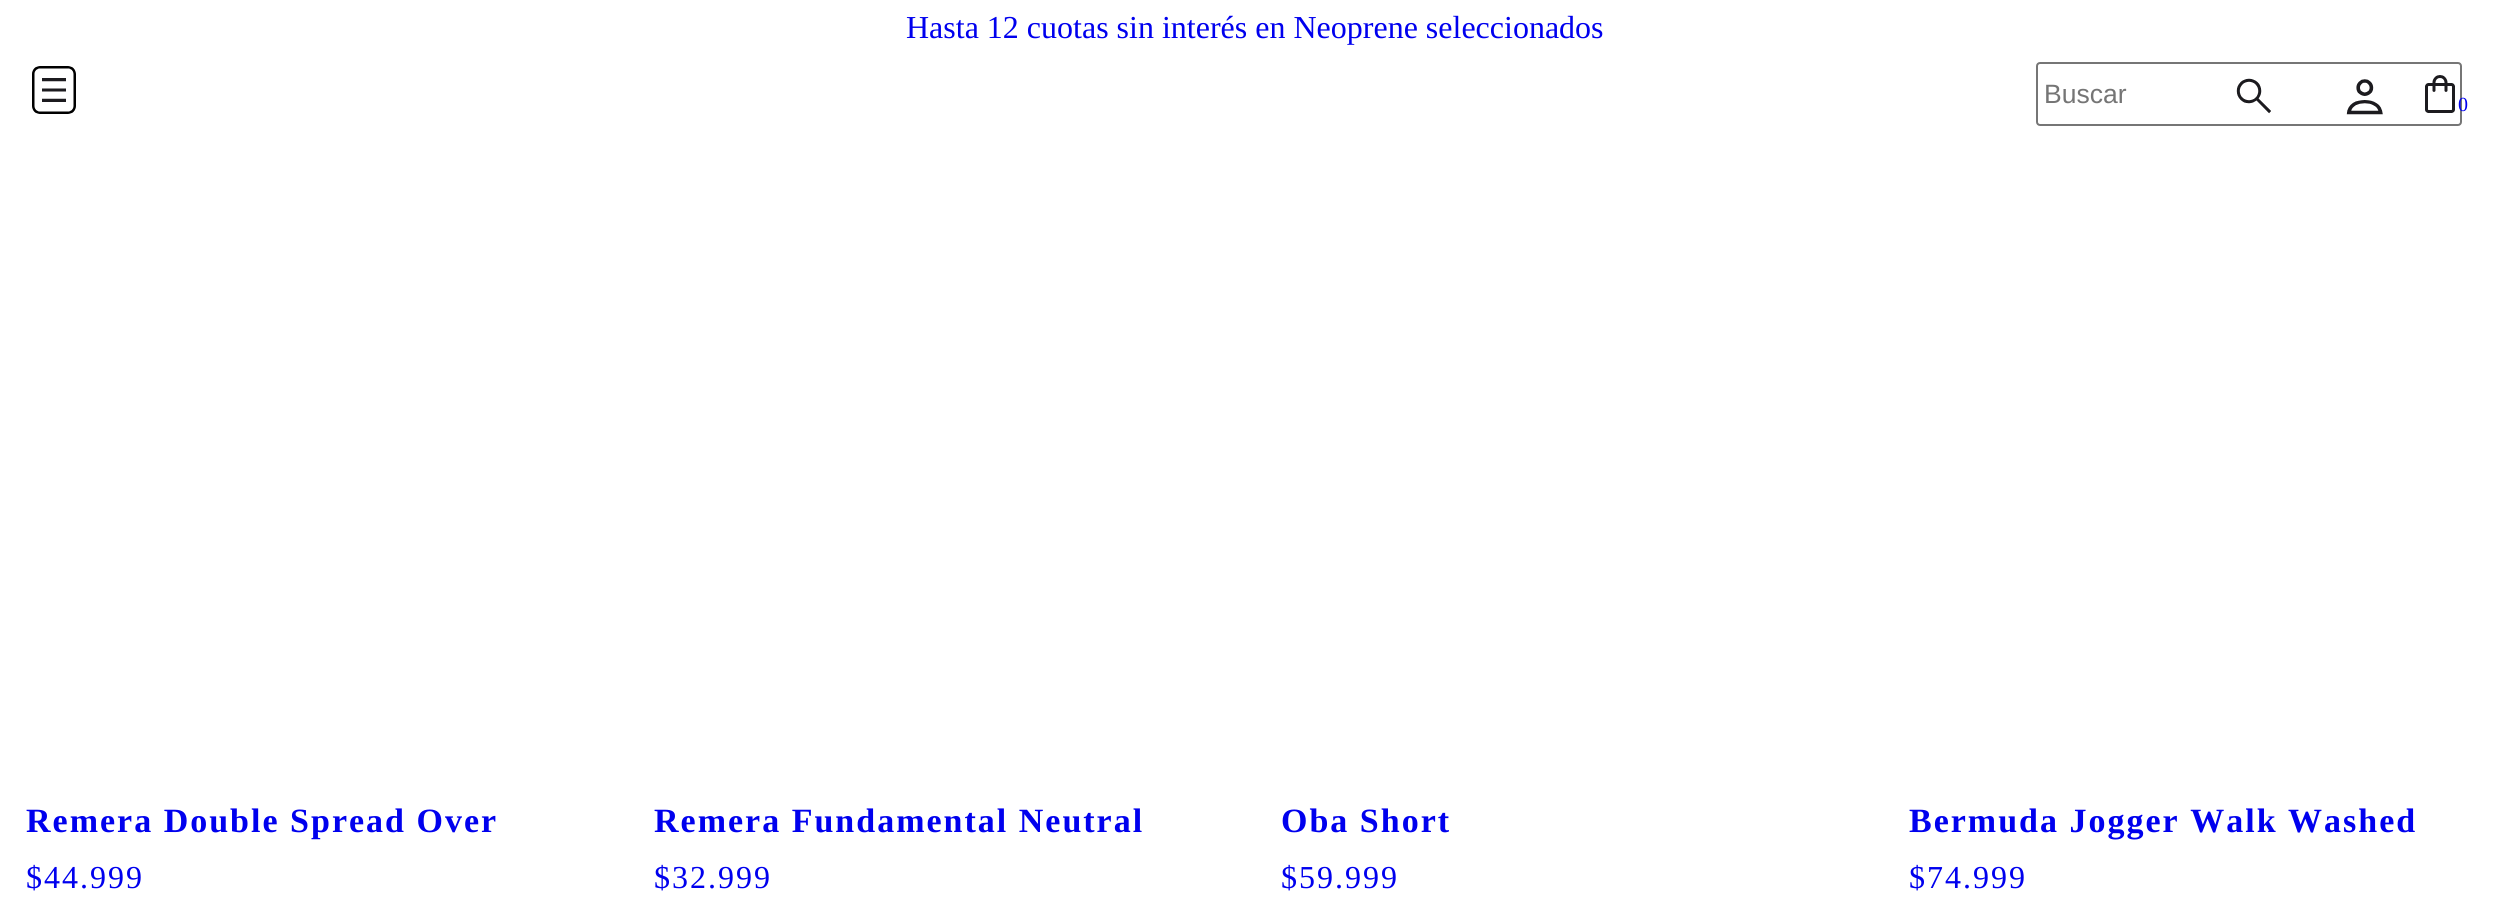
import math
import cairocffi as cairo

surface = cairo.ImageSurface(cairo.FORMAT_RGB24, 2510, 911)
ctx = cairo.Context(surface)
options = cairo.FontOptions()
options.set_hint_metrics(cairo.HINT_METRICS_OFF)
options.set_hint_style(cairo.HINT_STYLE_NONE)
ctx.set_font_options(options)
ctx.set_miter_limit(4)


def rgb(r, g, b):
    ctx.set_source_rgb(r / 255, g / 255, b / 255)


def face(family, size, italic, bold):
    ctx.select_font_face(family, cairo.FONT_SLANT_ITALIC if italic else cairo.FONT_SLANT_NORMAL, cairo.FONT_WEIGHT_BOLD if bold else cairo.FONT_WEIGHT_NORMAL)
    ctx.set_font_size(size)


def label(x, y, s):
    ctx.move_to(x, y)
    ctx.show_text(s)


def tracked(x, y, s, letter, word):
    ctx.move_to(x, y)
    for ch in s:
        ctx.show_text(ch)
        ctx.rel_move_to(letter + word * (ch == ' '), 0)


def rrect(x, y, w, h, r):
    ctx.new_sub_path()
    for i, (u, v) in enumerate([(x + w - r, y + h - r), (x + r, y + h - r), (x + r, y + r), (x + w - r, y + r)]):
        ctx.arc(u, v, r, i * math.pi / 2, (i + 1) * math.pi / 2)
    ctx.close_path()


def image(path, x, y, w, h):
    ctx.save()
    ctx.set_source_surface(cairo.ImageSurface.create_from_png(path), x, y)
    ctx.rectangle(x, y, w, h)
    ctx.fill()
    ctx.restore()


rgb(255, 255, 255)
ctx.paint()
face('Liberation Serif', 32, 0, 0)
rgb(0, 0, 238)
label(906, 38, 'Hasta 12 cuotas sin interés en Neoprene seleccionados')
image('image0.png', 32, 66, 44, 48)
rrect(2037, 63, 424, 62, 3)
rgb(118, 118, 118)
ctx.stroke()
face('Liberation Sans', 26.5, 0, 0)
rgb(117, 117, 117)
label(2044, 103, 'Buscar')
image('image1.png', 2236, 78, 35, 36)
image('image2.png', 2346, 79, 37, 36)
image('image3.png', 2425, 75, 30, 38)
face('Liberation Serif', 20, 0, 0)
rgb(0, 0, 238)
label(2458, 111, '0')
face('Liberation Serif', 34, 0, 1)
tracked(26, 832, 'Remera Double Spread Over', 2, 0)
face('Liberation Serif', 32, 0, 0)
tracked(26, 888, '$44.999', 2, 0)
face('Liberation Serif', 34, 0, 1)
tracked(654, 832, 'Remera Fundamental Neutral', 2, 0)
face('Liberation Serif', 32, 0, 0)
tracked(654, 888, '$32.999', 2, 0)
face('Liberation Serif', 34, 0, 1)
tracked(1281, 832, 'Oba Short', 2, 0)
face('Liberation Serif', 32, 0, 0)
tracked(1281, 888, '$59.999', 2, 0)
face('Liberation Serif', 34, 0, 1)
tracked(1909, 832, 'Bermuda Jogger Walk Washed', 2, 0)
face('Liberation Serif', 32, 0, 0)
tracked(1909, 888, '$74.999', 2, 0)
surface.write_to_png('render.png')
